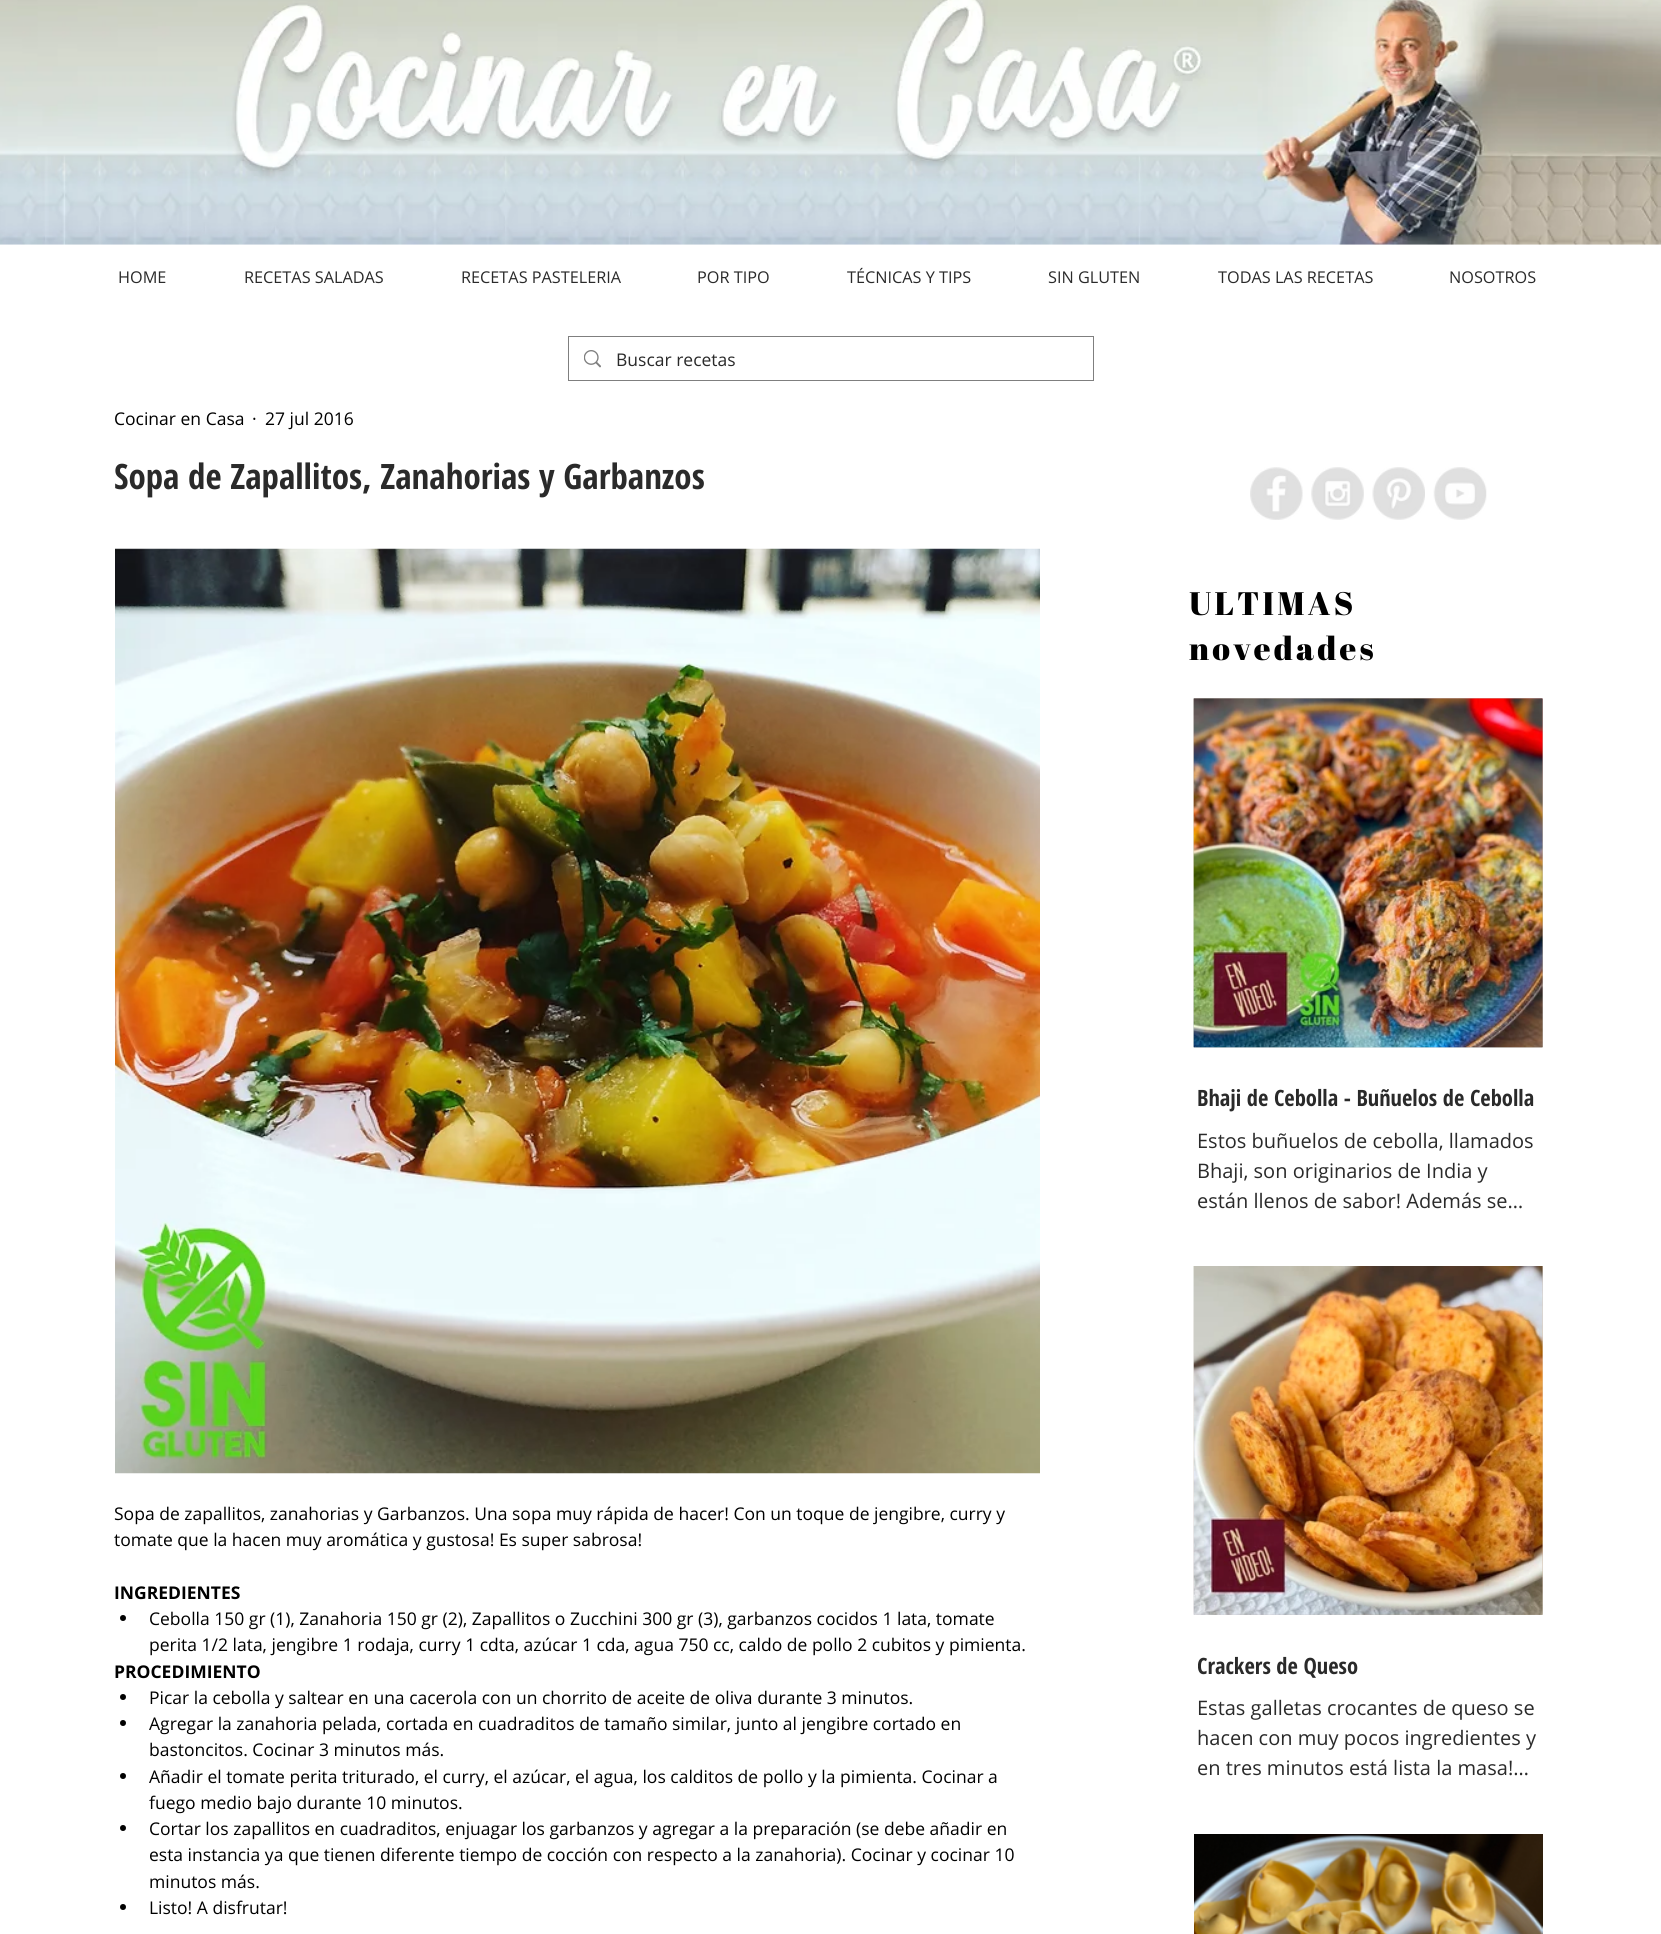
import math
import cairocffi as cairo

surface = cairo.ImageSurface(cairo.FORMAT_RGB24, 1661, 1934)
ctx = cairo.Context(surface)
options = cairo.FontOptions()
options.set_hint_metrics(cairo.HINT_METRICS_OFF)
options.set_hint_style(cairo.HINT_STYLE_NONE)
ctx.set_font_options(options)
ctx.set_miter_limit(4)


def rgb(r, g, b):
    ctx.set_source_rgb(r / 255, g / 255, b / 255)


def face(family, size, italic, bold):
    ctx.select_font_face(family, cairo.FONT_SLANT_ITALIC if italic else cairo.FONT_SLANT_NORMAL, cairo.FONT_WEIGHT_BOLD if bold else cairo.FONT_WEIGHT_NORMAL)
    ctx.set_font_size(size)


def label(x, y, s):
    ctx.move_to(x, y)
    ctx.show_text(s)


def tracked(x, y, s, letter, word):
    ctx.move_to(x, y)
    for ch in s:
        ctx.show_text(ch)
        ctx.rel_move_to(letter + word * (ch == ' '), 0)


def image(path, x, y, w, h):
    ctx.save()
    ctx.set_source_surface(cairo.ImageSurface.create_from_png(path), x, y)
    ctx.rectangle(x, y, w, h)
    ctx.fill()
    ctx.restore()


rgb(255, 255, 255)
ctx.paint()
image('image0.png', 0, 0, 1661, 245)
face('Open Sans', 16.25, 0, 0)
rgb(42, 42, 42)
label(118, 283, 'HOME')
label(244, 283, 'RECETAS SALADAS')
label(461, 283, 'RECETAS PASTELERIA')
label(697, 283, 'POR TIPO')
label(847, 283, 'TÉCNICAS Y TIPS')
label(1048, 283, 'SIN GLUTEN')
label(1218, 283, 'TODAS LAS RECETAS')
label(1449, 283, 'NOSOTROS')
ctx.rectangle(568.5, 336.5, 525, 44)
rgb(127, 127, 127)
ctx.set_line_width(1)
ctx.stroke()
image('image1.png', 584, 350, 17, 18)
face('Open Sans', 17.5, 0, 0)
rgb(42, 42, 42)
label(616, 366, 'Buscar recetas')
rgb(0, 0, 0)
label(114, 425, 'Cocinar en Casa')
label(252, 425, '·')
label(265, 425, '27 jul 2016')
face('Open Sans Condensed', 35, 0, 1)
rgb(42, 42, 42)
label(114, 489, 'Sopa de Zapallitos, Zanahorias y Garbanzos')
image('image2.png', 115, 548, 925, 926)
face('Open Sans', 17.5, 0, 0)
rgb(0, 0, 0)
label(114, 1520, 'Sopa de zapallitos, zanahorias y Garbanzos. Una sopa muy rápida de hacer! Con un toque de jengibre, curry y')
label(114, 1546, 'tomate que la hacen muy aromática y gustosa! Es super sabrosa!')
face('Open Sans', 17.5, 0, 1)
label(114, 1599, 'INGREDIENTES')
ctx.new_path()
ctx.arc(123, 1618, 3, 0, 2 * math.pi)
ctx.fill()
face('Open Sans', 17.5, 0, 0)
label(149, 1625, 'Cebolla 150 gr (1), Zanahoria 150 gr (2), Zapallitos o Zucchini 300 gr (3), garbanzos cocidos 1 lata, tomate')
label(149, 1651, 'perita 1/2 lata, jengibre 1 rodaja, curry 1 cdta, azúcar 1 cda, agua 750 cc, caldo de pollo 2 cubitos y pimienta.')
face('Open Sans', 17.5, 0, 1)
label(114, 1678, 'PROCEDIMIENTO')
ctx.new_path()
ctx.arc(123, 1697, 3, 0, 2 * math.pi)
ctx.fill()
face('Open Sans', 17.5, 0, 0)
label(149, 1704, 'Picar la cebolla y saltear en una cacerola con un chorrito de aceite de oliva durante 3 minutos.')
ctx.new_path()
ctx.arc(123, 1723, 3, 0, 2 * math.pi)
ctx.fill()
label(149, 1730, 'Agregar la zanahoria pelada, cortada en cuadraditos de tamaño similar, junto al jengibre cortado en')
label(149, 1756, 'bastoncitos. Cocinar 3 minutos más.')
ctx.new_path()
ctx.arc(123, 1776, 3, 0, 2 * math.pi)
ctx.fill()
label(149, 1783, 'Añadir el tomate perita triturado, el curry, el azúcar, el agua, los calditos de pollo y la pimienta. Cocinar a')
label(149, 1809, 'fuego medio bajo durante 10 minutos.')
ctx.new_path()
ctx.arc(123, 1828, 3, 0, 2 * math.pi)
ctx.fill()
label(149, 1835, 'Cortar los zapallitos en cuadraditos, enjuagar los garbanzos y agregar a la preparación (se debe añadir en')
label(149, 1861, 'esta instancia ya que tienen diferente tiempo de cocción con respecto a la zanahoria). Cocinar y cocinar 10')
label(149, 1888, 'minutos más.')
ctx.new_path()
ctx.arc(123, 1907, 3, 0, 2 * math.pi)
ctx.fill()
label(149, 1914, 'Listo! A disfrutar!')
image('image3.png', 1250, 467, 53, 53)
image('image4.png', 1311, 467, 53, 53)
image('image5.png', 1372, 467, 53, 53)
image('image6.png', 1433, 467, 54, 53)
face('Abril Fatface', 32.5, 0, 0)
tracked(1189, 615, 'ULTIMAS', 3.25, 0)
tracked(1189, 660, 'novedades', 3.25, 0)
image('image7.png', 1193, 698, 350, 350)
image('image8.png', 1193, 698, 350, 350)
face('Open Sans Condensed', 22.5, 0, 1)
rgb(42, 42, 42)
label(1197, 1106, 'Bhaji de Cebolla - Buñuelos de Cebolla')
face('Open Sans', 20, 0, 0)
label(1197, 1148, 'Estos buñuelos de cebolla, llamados')
label(1197, 1178, 'Bhaji, son originarios de India y')
label(1197, 1208, 'están llenos de sabor! Además se…')
image('image9.png', 1193, 1266, 350, 349)
image('image10.png', 1193, 1266, 350, 349)
ctx.save()
ctx.rectangle(1198, 1650, 341, 30)
ctx.clip()
face('Open Sans Condensed', 22.5, 0, 1)
label(1197, 1674, 'Crackers de Queso')
ctx.restore()
label(1197, 1715, 'Estas galletas crocantes de queso se')
label(1197, 1745, 'hacen con muy pocos ingredientes y')
label(1197, 1775, 'en tres minutos está lista la masa!…')
image('image11.png', 1194, 1834, 349, 100)
surface.write_to_png('render.png')
